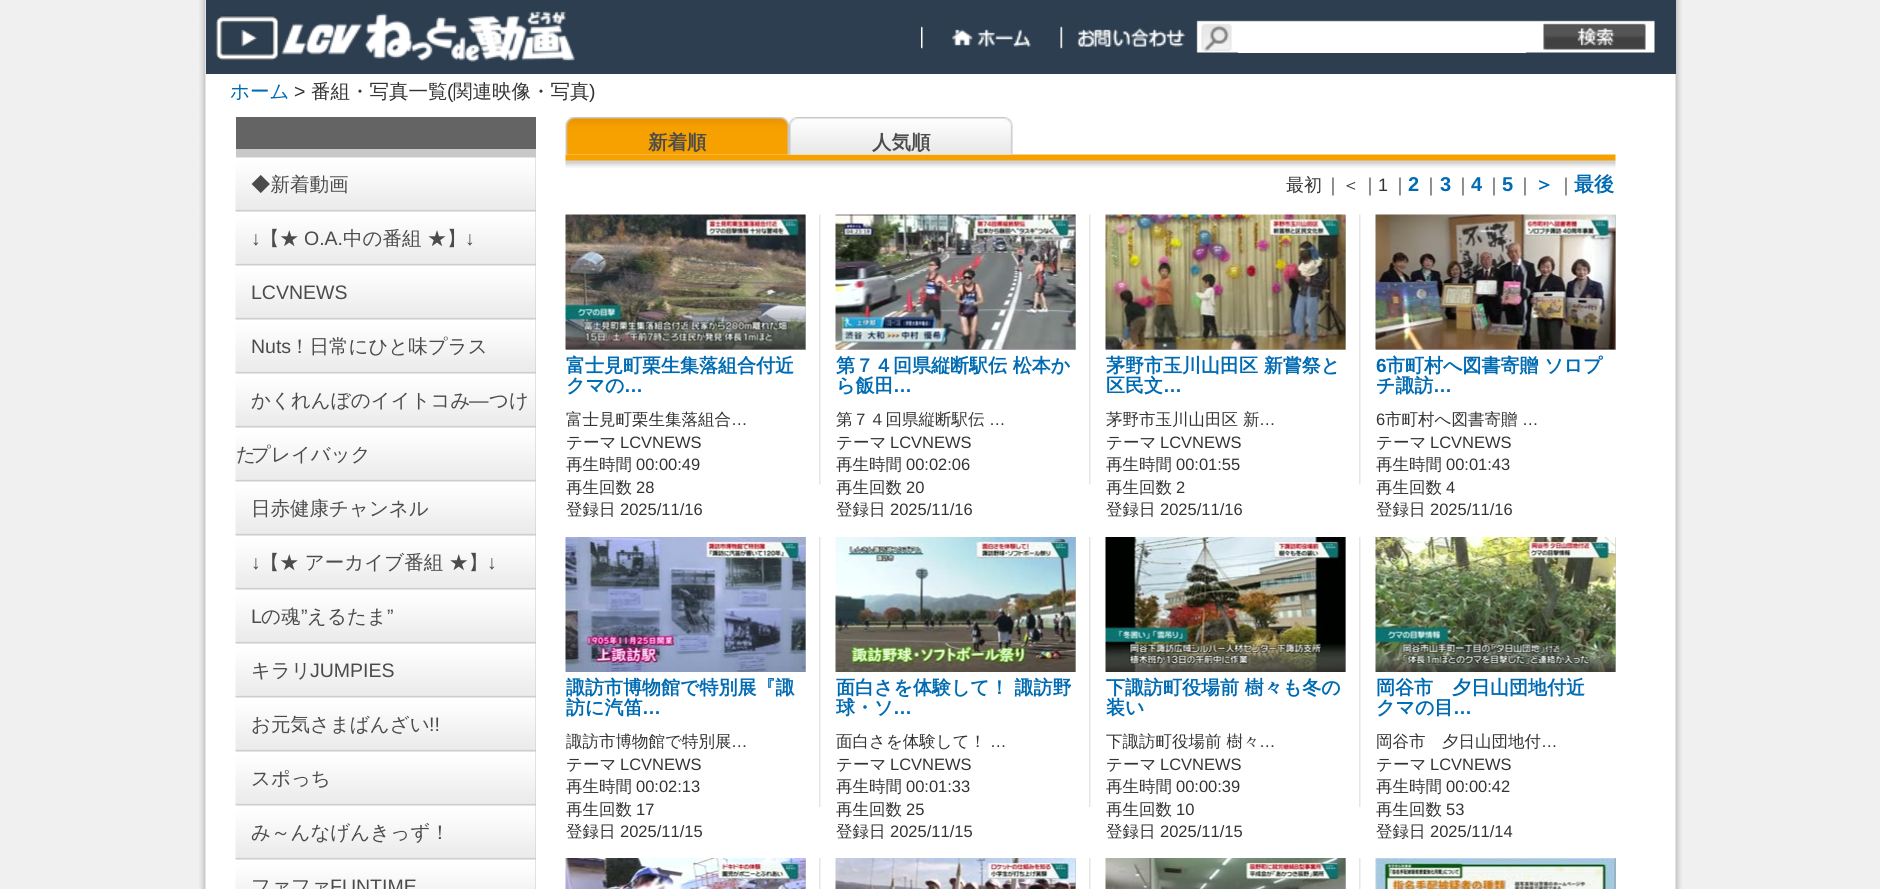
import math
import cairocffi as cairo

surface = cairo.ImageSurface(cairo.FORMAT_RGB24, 1880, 889)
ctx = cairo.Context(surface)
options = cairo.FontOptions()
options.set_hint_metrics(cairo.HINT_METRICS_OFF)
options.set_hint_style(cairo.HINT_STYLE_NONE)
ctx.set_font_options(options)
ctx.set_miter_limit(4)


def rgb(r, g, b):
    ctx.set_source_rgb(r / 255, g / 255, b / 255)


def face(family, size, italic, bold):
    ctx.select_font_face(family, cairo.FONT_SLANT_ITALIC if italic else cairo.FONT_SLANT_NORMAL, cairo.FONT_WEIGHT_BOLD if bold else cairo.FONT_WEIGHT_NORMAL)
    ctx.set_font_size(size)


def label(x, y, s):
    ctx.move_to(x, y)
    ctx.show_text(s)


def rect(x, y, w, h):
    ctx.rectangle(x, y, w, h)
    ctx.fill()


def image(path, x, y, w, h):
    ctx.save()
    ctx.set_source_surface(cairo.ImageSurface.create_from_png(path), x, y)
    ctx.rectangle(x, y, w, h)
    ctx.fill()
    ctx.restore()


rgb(240, 240, 240)
ctx.paint()
image('image0.png', 199, 0, 1483, 889)
rgb(44, 62, 80)
rect(206, 0, 1470, 74)
image('image1.png', 215, 11, 1440, 51)
image('image2.png', 921, 26, 110, 23)
image('image3.png', 1060, 26, 126, 23)
image('image4.png', 1543, 23, 103, 27)
rgb(255, 255, 255)
rect(1238, 52, 288, 1)
face('WenQuanYi Zen Hei Medium', 19.5, 0, 0)
rgb(0, 107, 178)
label(230, 98, 'ホーム')
face('Liberation Sans', 19.5, 0, 0)
rgb(51, 51, 51)
label(294, 98, '>')
face('WenQuanYi Zen Hei Medium', 19.5, 0, 0)
label(311, 98, '番組・写真一覧')
face('Liberation Sans', 19.5, 0, 0)
label(447, 98, '(')
face('WenQuanYi Zen Hei Medium', 19.5, 0, 0)
label(453, 98, '関連映像・写真')
face('Liberation Sans', 19.5, 0, 0)
label(589, 98, ')')
rgb(200, 200, 200)
rect(236, 149, 300, 740)
rgb(100, 100, 100)
rect(236, 117, 300, 32)
image('image5.png', 235, 157, 301, 55)
face('WenQuanYi Zen Hei Medium', 19.5, 0, 0)
rgb(75, 75, 75)
label(251, 191, '◆新着動画')
image('image6.png', 235, 211, 301, 55)
face('Liberation Sans', 19.5, 0, 0)
label(251, 245, '↓')
face('WenQuanYi Zen Hei Medium', 19.5, 0, 0)
label(260, 245, '【★')
face('Liberation Sans', 19.5, 0, 0)
label(304, 245, 'O.A.')
face('WenQuanYi Zen Hei Medium', 19.5, 0, 0)
label(343, 245, '中の番組 ★】')
face('Liberation Sans', 19.5, 0, 0)
label(465, 245, '↓')
image('image6.png', 235, 265, 301, 55)
label(251, 299, 'LCVNEWS')
image('image6.png', 235, 319, 301, 55)
label(251, 353, 'Nuts')
face('WenQuanYi Zen Hei Medium', 19.5, 0, 0)
label(290, 353, '！日常にひと味プラス')
image('image6.png', 235, 373, 301, 55)
label(251, 407, 'かくれんぼのイイトコみ')
face('Liberation Sans', 19.5, 0, 0)
label(469, 407, '―')
face('WenQuanYi Zen Hei Medium', 19.5, 0, 0)
label(489, 407, 'つけ')
image('image6.png', 235, 427, 301, 55)
label(236, 461, 'た')
label(251, 461, 'プレイバック')
image('image6.png', 235, 481, 301, 55)
label(251, 515, '日赤健康チャンネル')
image('image6.png', 235, 535, 301, 55)
face('Liberation Sans', 19.5, 0, 0)
label(251, 569, '↓')
face('WenQuanYi Zen Hei Medium', 19.5, 0, 0)
label(260, 569, '【★ アーカイブ番組 ★】')
face('Liberation Sans', 19.5, 0, 0)
label(487, 569, '↓')
image('image6.png', 235, 589, 301, 55)
label(251, 623, 'L')
face('WenQuanYi Zen Hei Medium', 19.5, 0, 0)
label(261, 623, 'の魂')
face('Liberation Sans', 19.5, 0, 0)
label(301, 623, '”')
face('WenQuanYi Zen Hei Medium', 19.5, 0, 0)
label(307, 623, 'えるたま')
face('Liberation Sans', 19.5, 0, 0)
label(387, 623, '”')
image('image6.png', 235, 643, 301, 55)
face('WenQuanYi Zen Hei Medium', 19.5, 0, 0)
label(251, 677, 'キラリ')
face('Liberation Sans', 19.5, 0, 0)
label(310, 677, 'JUMPIES')
image('image6.png', 235, 697, 301, 55)
face('WenQuanYi Zen Hei Medium', 19.5, 0, 0)
label(251, 731, 'お元気さまばんざい')
face('Liberation Sans', 19.5, 0, 0)
label(429, 731, '!!')
image('image6.png', 235, 751, 301, 55)
face('WenQuanYi Zen Hei Medium', 19.5, 0, 0)
label(251, 785, 'スポっち')
image('image6.png', 235, 805, 301, 55)
label(251, 839, 'み～んなげんきっず！')
image('image7.png', 235, 859, 301, 30)
label(251, 893, 'ファファ')
face('Liberation Sans', 19.5, 0, 0)
label(330, 893, 'FUNTIME')
image('image10.png', 565, 154, 1051, 14)
image('image8.png', 565, 117, 224, 38)
face('WenQuanYi Zen Hei', 19.5, 0, 1)
label(648, 149, '新着順')
image('image9.png', 789, 117, 224, 38)
label(872, 149, '人気順')
face('WenQuanYi Zen Hei Medium', 18, 0, 0)
rgb(51, 51, 51)
label(1286, 191, '最初')
label(1324, 191, '｜＜')
label(1361, 191, '｜')
face('Liberation Sans', 18, 0, 0)
label(1378, 191, '1')
face('WenQuanYi Zen Hei Medium', 18, 0, 0)
label(1391, 191, '｜')
face('Liberation Sans', 20, 0, 1)
rgb(0, 107, 178)
label(1408, 191, '2')
face('WenQuanYi Zen Hei Medium', 18, 0, 0)
rgb(51, 51, 51)
label(1422, 191, '｜')
face('Liberation Sans', 20, 0, 1)
rgb(0, 107, 178)
label(1440, 191, '3')
face('WenQuanYi Zen Hei Medium', 18, 0, 0)
rgb(51, 51, 51)
label(1454, 191, '｜')
face('Liberation Sans', 20, 0, 1)
rgb(0, 107, 178)
label(1471, 191, '4')
face('WenQuanYi Zen Hei Medium', 18, 0, 0)
rgb(51, 51, 51)
label(1485, 191, '｜')
face('Liberation Sans', 20, 0, 1)
rgb(0, 107, 178)
label(1502, 191, '5')
face('WenQuanYi Zen Hei Medium', 18, 0, 0)
rgb(51, 51, 51)
label(1516, 191, '｜')
face('WenQuanYi Zen Hei', 20, 0, 1)
rgb(0, 107, 178)
label(1534, 191, '＞')
face('WenQuanYi Zen Hei Medium', 18, 0, 0)
rgb(51, 51, 51)
label(1557, 191, '｜')
face('WenQuanYi Zen Hei', 20, 0, 1)
rgb(0, 107, 178)
label(1574, 191, '最後')
rgb(192, 192, 192)
rect(566, 215, 240, 135)
image('image11.png', 565, 214, 241, 136)
face('WenQuanYi Zen Hei', 19, 0, 1)
rgb(0, 107, 178)
label(566, 372, '富士見町栗生集落組合付近')
label(566, 392, 'クマの')
face('Liberation Sans', 19, 0, 1)
label(624, 392, '…')
face('WenQuanYi Zen Hei Medium', 16.5, 0, 0)
rgb(51, 51, 51)
label(566, 425, '富士見町栗生集落組合')
face('Liberation Sans', 16.5, 0, 0)
label(731, 425, '…')
face('WenQuanYi Zen Hei Medium', 16.5, 0, 0)
label(566, 448, 'テーマ')
face('Liberation Sans', 16.5, 0, 0)
label(620, 448, 'LCVNEWS')
face('WenQuanYi Zen Hei Medium', 16.5, 0, 0)
label(566, 470, '再生時間')
face('Liberation Sans', 16.5, 0, 0)
label(636, 470, '00:00:49')
face('WenQuanYi Zen Hei Medium', 16.5, 0, 0)
label(566, 493, '再生回数')
face('Liberation Sans', 16.5, 0, 0)
label(636, 493, '28')
face('WenQuanYi Zen Hei Medium', 16.5, 0, 0)
label(566, 515, '登録日')
face('Liberation Sans', 16.5, 0, 0)
label(620, 515, '2025/11/16')
image('image12.png', 819, 214, 2, 271)
rgb(192, 192, 192)
rect(836, 215, 240, 135)
image('image13.png', 835, 214, 241, 136)
face('WenQuanYi Zen Hei', 19, 0, 1)
rgb(0, 107, 178)
label(836, 372, '第７４回県縦断駅伝 松本か')
label(836, 392, 'ら飯田')
face('Liberation Sans', 19, 0, 1)
label(893, 392, '…')
face('WenQuanYi Zen Hei Medium', 16.5, 0, 0)
rgb(51, 51, 51)
label(836, 425, '第７４回県縦断駅伝')
face('Liberation Sans', 16.5, 0, 0)
label(989, 425, '…')
face('WenQuanYi Zen Hei Medium', 16.5, 0, 0)
label(836, 448, 'テーマ')
face('Liberation Sans', 16.5, 0, 0)
label(890, 448, 'LCVNEWS')
face('WenQuanYi Zen Hei Medium', 16.5, 0, 0)
label(836, 470, '再生時間')
face('Liberation Sans', 16.5, 0, 0)
label(906, 470, '00:02:06')
face('WenQuanYi Zen Hei Medium', 16.5, 0, 0)
label(836, 493, '再生回数')
face('Liberation Sans', 16.5, 0, 0)
label(906, 493, '20')
face('WenQuanYi Zen Hei Medium', 16.5, 0, 0)
label(836, 515, '登録日')
face('Liberation Sans', 16.5, 0, 0)
label(890, 515, '2025/11/16')
image('image12.png', 1089, 214, 2, 271)
rgb(192, 192, 192)
rect(1106, 215, 240, 135)
image('image14.png', 1105, 214, 241, 136)
face('WenQuanYi Zen Hei', 19, 0, 1)
rgb(0, 107, 178)
label(1106, 372, '茅野市玉川山田区 新嘗祭と')
label(1106, 392, '区民文')
face('Liberation Sans', 19, 0, 1)
label(1163, 392, '…')
face('WenQuanYi Zen Hei Medium', 16.5, 0, 0)
rgb(51, 51, 51)
label(1106, 425, '茅野市玉川山田区 新')
face('Liberation Sans', 16.5, 0, 0)
label(1259, 425, '…')
face('WenQuanYi Zen Hei Medium', 16.5, 0, 0)
label(1106, 448, 'テーマ')
face('Liberation Sans', 16.5, 0, 0)
label(1160, 448, 'LCVNEWS')
face('WenQuanYi Zen Hei Medium', 16.5, 0, 0)
label(1106, 470, '再生時間')
face('Liberation Sans', 16.5, 0, 0)
label(1176, 470, '00:01:55')
face('WenQuanYi Zen Hei Medium', 16.5, 0, 0)
label(1106, 493, '再生回数')
face('Liberation Sans', 16.5, 0, 0)
label(1176, 493, '2')
face('WenQuanYi Zen Hei Medium', 16.5, 0, 0)
label(1106, 515, '登録日')
face('Liberation Sans', 16.5, 0, 0)
label(1160, 515, '2025/11/16')
image('image12.png', 1359, 214, 2, 271)
rgb(192, 192, 192)
rect(1376, 215, 240, 135)
image('image15.png', 1375, 214, 241, 136)
face('Liberation Sans', 19, 0, 1)
rgb(0, 107, 178)
label(1376, 372, '6')
face('WenQuanYi Zen Hei', 19, 0, 1)
label(1386, 372, '市町村へ図書寄贈 ソロプ')
label(1376, 392, 'チ諏訪')
face('Liberation Sans', 19, 0, 1)
label(1433, 392, '…')
face('Liberation Sans', 16.5, 0, 0)
rgb(51, 51, 51)
label(1376, 425, '6')
face('WenQuanYi Zen Hei Medium', 16.5, 0, 0)
label(1385, 425, '市町村へ図書寄贈')
face('Liberation Sans', 16.5, 0, 0)
label(1522, 425, '…')
face('WenQuanYi Zen Hei Medium', 16.5, 0, 0)
label(1376, 448, 'テーマ')
face('Liberation Sans', 16.5, 0, 0)
label(1430, 448, 'LCVNEWS')
face('WenQuanYi Zen Hei Medium', 16.5, 0, 0)
label(1376, 470, '再生時間')
face('Liberation Sans', 16.5, 0, 0)
label(1446, 470, '00:01:43')
face('WenQuanYi Zen Hei Medium', 16.5, 0, 0)
label(1376, 493, '再生回数')
face('Liberation Sans', 16.5, 0, 0)
label(1446, 493, '4')
face('WenQuanYi Zen Hei Medium', 16.5, 0, 0)
label(1376, 515, '登録日')
face('Liberation Sans', 16.5, 0, 0)
label(1430, 515, '2025/11/16')
rgb(192, 192, 192)
rect(805, 537, 1, 135)
image('image16.png', 565, 537, 241, 135)
face('WenQuanYi Zen Hei', 19, 0, 1)
rgb(0, 107, 178)
label(566, 694, '諏訪市博物館で特別展『諏')
label(566, 714, '訪に汽笛')
face('Liberation Sans', 19, 0, 1)
label(642, 714, '…')
face('WenQuanYi Zen Hei Medium', 16.5, 0, 0)
rgb(51, 51, 51)
label(566, 747, '諏訪市博物館で特別展')
face('Liberation Sans', 16.5, 0, 0)
label(731, 747, '…')
face('WenQuanYi Zen Hei Medium', 16.5, 0, 0)
label(566, 770, 'テーマ')
face('Liberation Sans', 16.5, 0, 0)
label(620, 770, 'LCVNEWS')
face('WenQuanYi Zen Hei Medium', 16.5, 0, 0)
label(566, 792, '再生時間')
face('Liberation Sans', 16.5, 0, 0)
label(636, 792, '00:02:13')
face('WenQuanYi Zen Hei Medium', 16.5, 0, 0)
label(566, 815, '再生回数')
face('Liberation Sans', 16.5, 0, 0)
label(636, 815, '17')
face('WenQuanYi Zen Hei Medium', 16.5, 0, 0)
label(566, 837, '登録日')
face('Liberation Sans', 16.5, 0, 0)
label(620, 837, '2025/11/15')
image('image17.png', 819, 537, 2, 270)
rgb(192, 192, 192)
rect(1075, 537, 1, 135)
image('image18.png', 835, 537, 241, 135)
face('WenQuanYi Zen Hei', 19, 0, 1)
rgb(0, 107, 178)
label(836, 694, '面白さを体験して！ 諏訪野')
label(836, 714, '球・ソ')
face('Liberation Sans', 19, 0, 1)
label(893, 714, '…')
face('WenQuanYi Zen Hei Medium', 16.5, 0, 0)
rgb(51, 51, 51)
label(836, 747, '面白さを体験して！')
face('Liberation Sans', 16.5, 0, 0)
label(990, 747, '…')
face('WenQuanYi Zen Hei Medium', 16.5, 0, 0)
label(836, 770, 'テーマ')
face('Liberation Sans', 16.5, 0, 0)
label(890, 770, 'LCVNEWS')
face('WenQuanYi Zen Hei Medium', 16.5, 0, 0)
label(836, 792, '再生時間')
face('Liberation Sans', 16.5, 0, 0)
label(906, 792, '00:01:33')
face('WenQuanYi Zen Hei Medium', 16.5, 0, 0)
label(836, 815, '再生回数')
face('Liberation Sans', 16.5, 0, 0)
label(906, 815, '25')
face('WenQuanYi Zen Hei Medium', 16.5, 0, 0)
label(836, 837, '登録日')
face('Liberation Sans', 16.5, 0, 0)
label(890, 837, '2025/11/15')
image('image17.png', 1089, 537, 2, 270)
rgb(192, 192, 192)
rect(1345, 537, 1, 135)
image('image19.png', 1105, 537, 241, 135)
face('WenQuanYi Zen Hei', 19, 0, 1)
rgb(0, 107, 178)
label(1106, 694, '下諏訪町役場前 樹々も冬の')
label(1106, 714, '装い')
face('WenQuanYi Zen Hei Medium', 16.5, 0, 0)
rgb(51, 51, 51)
label(1106, 747, '下諏訪町役場前 樹々')
face('Liberation Sans', 16.5, 0, 0)
label(1259, 747, '…')
face('WenQuanYi Zen Hei Medium', 16.5, 0, 0)
label(1106, 770, 'テーマ')
face('Liberation Sans', 16.5, 0, 0)
label(1160, 770, 'LCVNEWS')
face('WenQuanYi Zen Hei Medium', 16.5, 0, 0)
label(1106, 792, '再生時間')
face('Liberation Sans', 16.5, 0, 0)
label(1176, 792, '00:00:39')
face('WenQuanYi Zen Hei Medium', 16.5, 0, 0)
label(1106, 815, '再生回数')
face('Liberation Sans', 16.5, 0, 0)
label(1176, 815, '10')
face('WenQuanYi Zen Hei Medium', 16.5, 0, 0)
label(1106, 837, '登録日')
face('Liberation Sans', 16.5, 0, 0)
label(1160, 837, '2025/11/15')
image('image17.png', 1359, 537, 2, 270)
rgb(192, 192, 192)
rect(1615, 537, 1, 135)
image('image20.png', 1375, 537, 241, 135)
face('WenQuanYi Zen Hei', 19, 0, 1)
rgb(0, 107, 178)
label(1376, 694, '岡谷市　夕日山団地付近')
label(1376, 714, 'クマの目')
face('Liberation Sans', 19, 0, 1)
label(1453, 714, '…')
face('WenQuanYi Zen Hei Medium', 16.5, 0, 0)
rgb(51, 51, 51)
label(1376, 747, '岡谷市　夕日山団地付')
face('Liberation Sans', 16.5, 0, 0)
label(1541, 747, '…')
face('WenQuanYi Zen Hei Medium', 16.5, 0, 0)
label(1376, 770, 'テーマ')
face('Liberation Sans', 16.5, 0, 0)
label(1430, 770, 'LCVNEWS')
face('WenQuanYi Zen Hei Medium', 16.5, 0, 0)
label(1376, 792, '再生時間')
face('Liberation Sans', 16.5, 0, 0)
label(1446, 792, '00:00:42')
face('WenQuanYi Zen Hei Medium', 16.5, 0, 0)
label(1376, 815, '再生回数')
face('Liberation Sans', 16.5, 0, 0)
label(1446, 815, '53')
face('WenQuanYi Zen Hei Medium', 16.5, 0, 0)
label(1376, 837, '登録日')
face('Liberation Sans', 16.5, 0, 0)
label(1430, 837, '2025/11/14')
rgb(192, 192, 192)
rect(805, 858, 1, 31)
image('image21.png', 565, 858, 241, 31)
image('image22.png', 819, 858, 2, 31)
rect(1075, 858, 1, 31)
image('image23.png', 835, 858, 241, 31)
image('image22.png', 1089, 858, 2, 31)
rect(1345, 858, 1, 31)
image('image24.png', 1105, 858, 241, 31)
image('image22.png', 1359, 858, 2, 31)
rect(1615, 858, 1, 31)
image('image25.png', 1375, 858, 241, 31)
surface.write_to_png('render.png')
